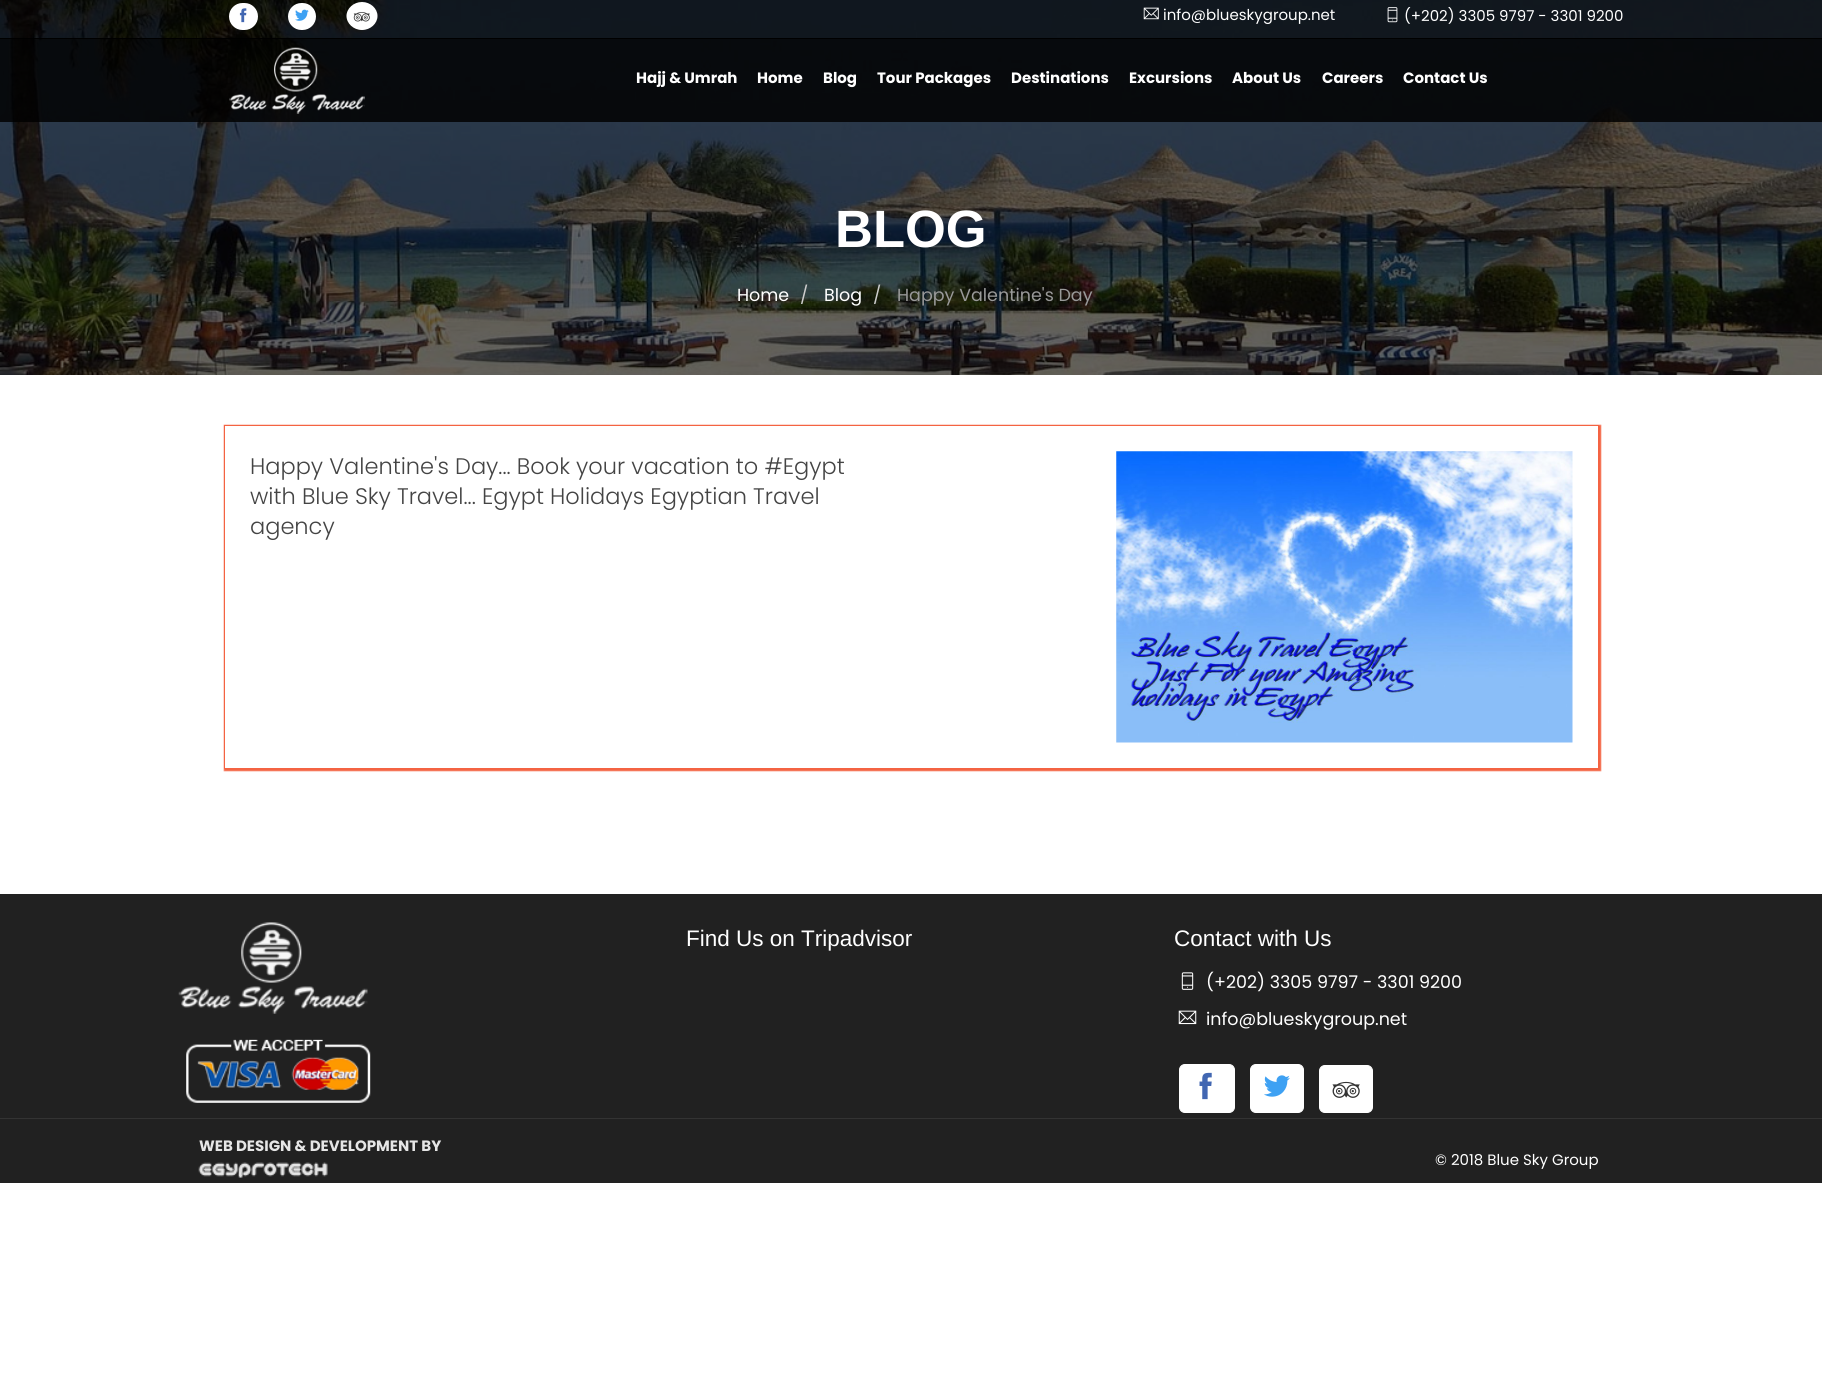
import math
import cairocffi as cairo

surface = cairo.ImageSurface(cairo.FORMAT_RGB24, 1822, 1384)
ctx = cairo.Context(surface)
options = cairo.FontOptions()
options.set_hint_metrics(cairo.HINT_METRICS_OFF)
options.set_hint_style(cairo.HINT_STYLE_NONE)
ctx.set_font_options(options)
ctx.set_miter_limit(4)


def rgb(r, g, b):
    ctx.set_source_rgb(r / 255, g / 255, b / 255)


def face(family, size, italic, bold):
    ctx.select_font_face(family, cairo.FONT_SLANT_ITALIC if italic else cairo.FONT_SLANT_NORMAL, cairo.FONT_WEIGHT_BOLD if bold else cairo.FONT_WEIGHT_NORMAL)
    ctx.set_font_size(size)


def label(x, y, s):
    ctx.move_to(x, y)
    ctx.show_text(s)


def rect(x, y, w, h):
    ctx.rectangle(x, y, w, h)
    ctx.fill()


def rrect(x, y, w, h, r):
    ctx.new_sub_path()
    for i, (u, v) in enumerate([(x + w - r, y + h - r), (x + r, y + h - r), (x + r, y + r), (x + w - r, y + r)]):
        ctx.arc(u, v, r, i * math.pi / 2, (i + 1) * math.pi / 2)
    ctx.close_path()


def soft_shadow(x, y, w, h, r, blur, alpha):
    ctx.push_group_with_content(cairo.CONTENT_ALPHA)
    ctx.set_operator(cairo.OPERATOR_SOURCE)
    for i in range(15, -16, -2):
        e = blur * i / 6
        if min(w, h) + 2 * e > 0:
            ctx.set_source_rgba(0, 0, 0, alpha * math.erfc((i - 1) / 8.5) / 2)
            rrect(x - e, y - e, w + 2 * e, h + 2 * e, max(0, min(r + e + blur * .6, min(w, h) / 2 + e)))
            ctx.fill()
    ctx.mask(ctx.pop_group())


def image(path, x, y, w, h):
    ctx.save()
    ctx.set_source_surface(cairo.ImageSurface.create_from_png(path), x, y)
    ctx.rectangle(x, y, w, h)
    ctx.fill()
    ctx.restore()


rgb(255, 255, 255)
ctx.paint()
image('image6.png', 0, 0, 1822, 375)
ctx.set_source_rgba(0, 0, 0, 0.6)
rect(0, 0, 1822, 38)
rgb(0, 0, 0)
rect(0, 38, 1822, 1)
rgb(255, 255, 255)
rrect(229, 3, 29, 27, 13.5)
ctx.fill()
image('image0.png', 239, 8, 8, 15)
rrect(288, 3, 28, 27, 13.5)
ctx.fill()
image('image1.png', 295, 9, 14, 12)
ctx.new_path()
ctx.move_to(362, 2)
ctx.curve_to(370.5, 2, 377.5, 8.5, 377.5, 16)
ctx.curve_to(377.5, 23.5, 370.5, 30, 362, 30)
ctx.curve_to(353.5, 30, 346.5, 23.5, 346.5, 16)
ctx.curve_to(346.5, 8.5, 353.5, 2, 362, 2)
ctx.close_path()
ctx.fill()
image('image2.png', 353, 12, 17, 10)
image('image3.png', 1143, 7, 16, 13)
face('Poppins', 15, 0, 0)
label(1163, 20, 'info@blueskygroup.net')
image('image4.png', 1387, 7, 11, 16)
label(1404, 21, '(+202) 3305 9797 - 3301 9200')
ctx.set_source_rgba(0, 0, 0, 0.83)
rect(0, 39, 1822, 83)
image('image5.png', 229, 47, 136, 67)
face('Poppins', 15, 0, 1)
rgb(255, 255, 255)
label(636, 83, 'Hajj & Umrah')
label(757, 83, 'Home')
label(823, 83, 'Blog')
label(877, 83, 'Tour Packages')
label(1011, 83, 'Destinations')
label(1129, 83, 'Excursions')
label(1232, 83, 'About Us')
label(1322, 83, 'Careers')
label(1403, 83, 'Contact Us')
face('Liberation Sans', 52.5, 0, 1)
label(835, 247, 'BLOG')
face('Poppins', 17.5, 0, 0)
label(737, 301, 'Home')
rgb(204, 204, 204)
label(800, 301, '/')
rgb(255, 255, 255)
label(824, 301, 'Blog')
rgb(204, 204, 204)
label(873, 301, '/')
rgb(153, 153, 153)
label(897, 301, 'Happy Valentine\'s Day')
ctx.save()
ctx.set_fill_rule(cairo.FILL_RULE_EVEN_ODD)
ctx.new_path()
ctx.move_to(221, 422)
ctx.line_to(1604, 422)
ctx.line_to(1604, 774)
ctx.line_to(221, 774)
ctx.close_path()
ctx.move_to(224, 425)
ctx.line_to(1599, 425)
ctx.line_to(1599, 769)
ctx.line_to(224, 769)
ctx.close_path()
ctx.clip()
rgb(244, 99, 66)
soft_shadow(224, 425, 1377, 346, 0, 0.5, 1)
ctx.restore()
ctx.rectangle(224.5, 425.5, 1374, 343)
rgb(244, 99, 66)
ctx.set_line_width(1)
ctx.stroke()
face('Poppins Light', 22.5, 0, 0)
rgb(68, 68, 68)
label(250, 474, 'Happy Valentine\'s Day... Book your vacation to #Egypt')
label(250, 504, 'with Blue Sky Travel... Egypt Holidays Egyptian Travel')
label(250, 534, 'agency')
image('image7.png', 1116, 451, 457, 292)
rgb(33, 33, 33)
rect(0, 894, 1822, 289)
rgb(51, 51, 51)
rect(0, 1118, 1822, 1)
image('image8.png', 178, 922, 190, 92)
image('image9.png', 186, 1039, 185, 64)
face('Liberation Sans', 22.5, 0, 0)
rgb(255, 255, 255)
label(686, 946, 'Find Us on Tripadvisor')
label(1174, 946, 'Contact with Us')
image('image10.png', 1181, 972, 13, 18)
face('Poppins', 17.5, 0, 0)
label(1206, 988, '(+202) 3305 9797 - 3301 9200')
image('image11.png', 1178, 1010, 19, 15)
label(1206, 1025, 'info@blueskygroup.net')
rrect(1179.5, 1064.5, 55, 48, 5.5)
ctx.fill_preserve()
ctx.stroke()
image('image12.png', 1199, 1072, 13, 28)
rrect(1250.5, 1064.5, 53, 48, 5.5)
ctx.fill_preserve()
ctx.stroke()
image('image13.png', 1264, 1075, 26, 22)
rrect(1319.5, 1065.5, 53, 47, 5.5)
ctx.fill_preserve()
ctx.stroke()
image('image14.png', 1332, 1081, 28, 17)
face('Poppins', 15, 0, 1)
rgb(230, 230, 230)
label(199, 1151, 'WEB DESIGN & DEVELOPMENT BY')
image('image15.png', 198, 1162, 130, 16)
face('Poppins', 15, 0, 0)
rgb(255, 255, 255)
label(1435, 1165, '© 2018 Blue Sky Group')
surface.write_to_png('render.png')
